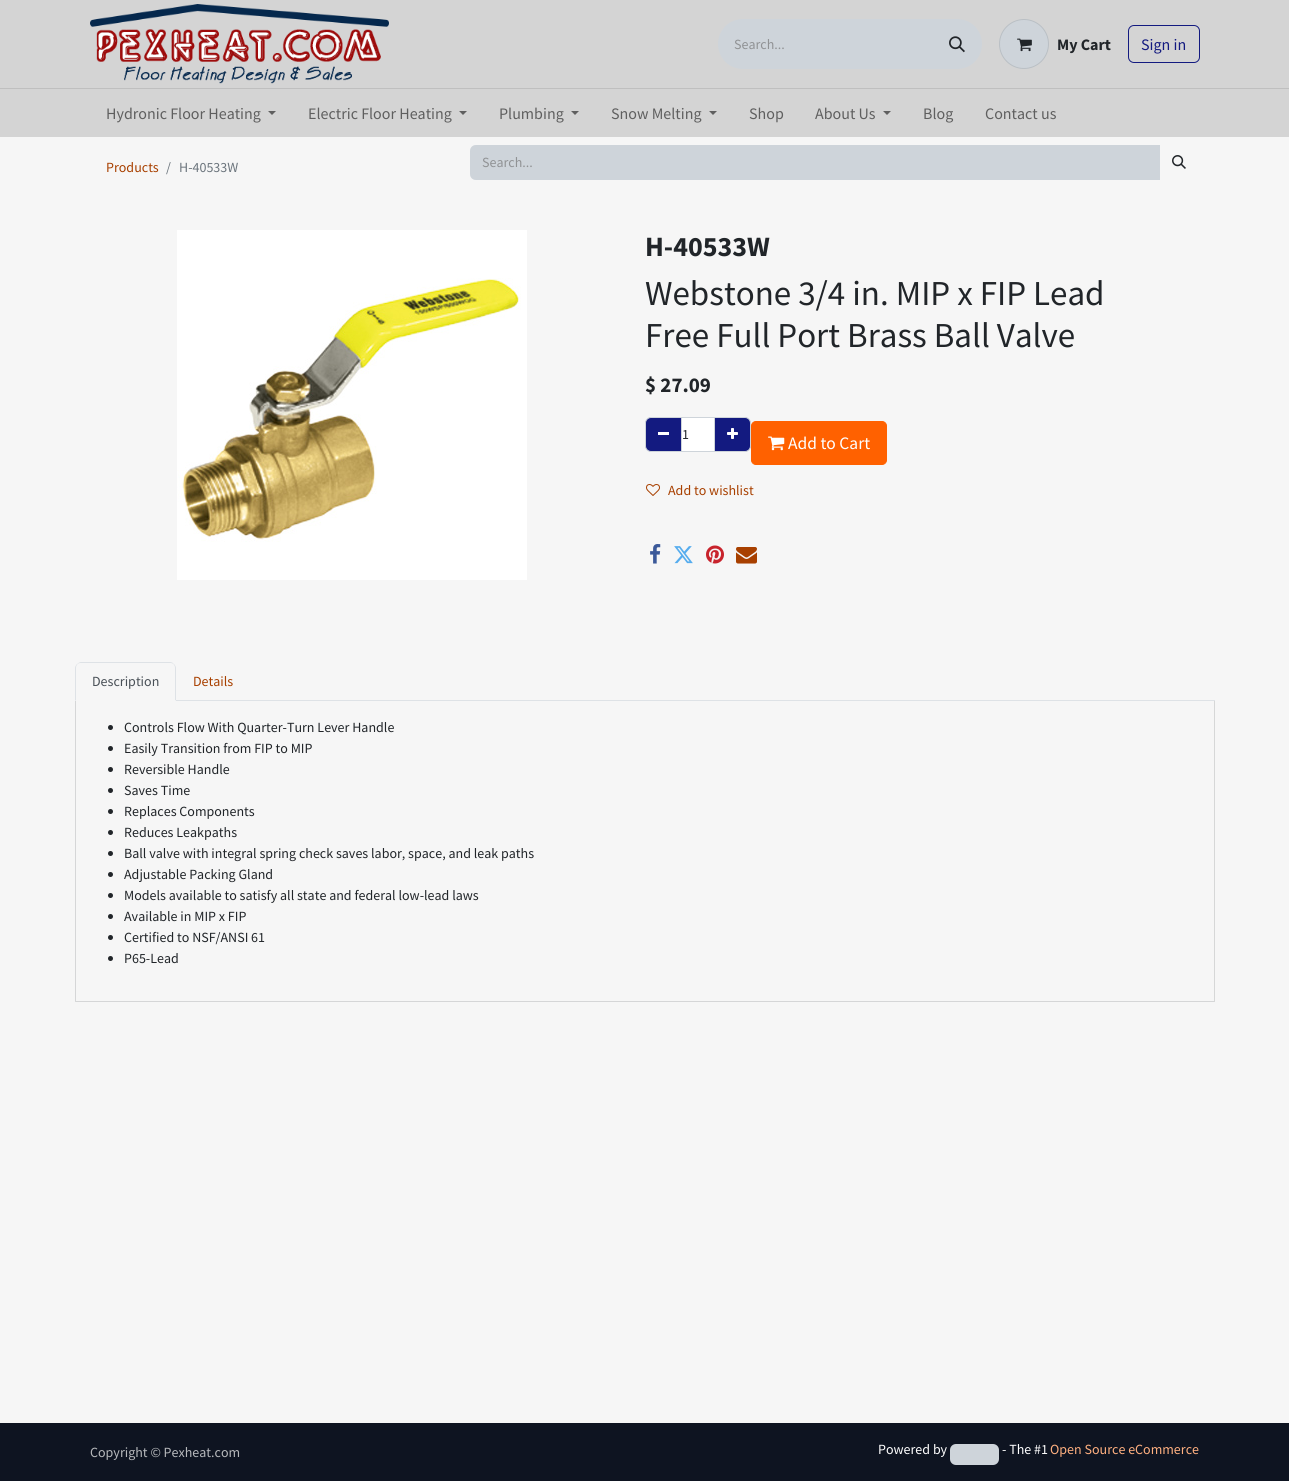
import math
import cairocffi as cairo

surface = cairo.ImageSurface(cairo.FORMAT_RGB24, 1289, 1481)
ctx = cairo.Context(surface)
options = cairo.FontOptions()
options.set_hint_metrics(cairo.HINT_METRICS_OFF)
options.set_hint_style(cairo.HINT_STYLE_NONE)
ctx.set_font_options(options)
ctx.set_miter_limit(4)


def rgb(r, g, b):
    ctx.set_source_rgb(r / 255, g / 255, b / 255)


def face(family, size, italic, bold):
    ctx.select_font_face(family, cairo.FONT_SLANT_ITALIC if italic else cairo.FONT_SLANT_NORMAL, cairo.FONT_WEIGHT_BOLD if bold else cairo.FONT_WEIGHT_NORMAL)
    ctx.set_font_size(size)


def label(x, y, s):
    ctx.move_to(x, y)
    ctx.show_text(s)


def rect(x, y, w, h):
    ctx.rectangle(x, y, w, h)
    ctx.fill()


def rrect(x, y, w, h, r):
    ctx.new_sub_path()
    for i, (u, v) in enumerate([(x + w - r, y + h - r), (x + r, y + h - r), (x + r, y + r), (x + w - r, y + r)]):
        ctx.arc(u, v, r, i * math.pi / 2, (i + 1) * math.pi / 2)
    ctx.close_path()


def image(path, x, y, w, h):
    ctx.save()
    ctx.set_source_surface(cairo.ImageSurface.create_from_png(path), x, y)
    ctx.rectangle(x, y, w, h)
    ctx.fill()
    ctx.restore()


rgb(246, 246, 246)
ctx.paint()
rgb(212, 212, 212)
rect(0, 0, 1289, 137)
image('image0.png', 90, 4, 299, 80)
rgb(206, 212, 218)
ctx.new_path()
ctx.move_to(743, 19)
ctx.line_to(933, 19)
ctx.line_to(933, 69)
ctx.line_to(743, 69)
ctx.curve_to(729, 69, 718, 58, 718, 44)
ctx.curve_to(718, 30, 729, 19, 743, 19)
ctx.close_path()
ctx.fill()
face('Source Sans Pro', 14, 0, 0)
rgb(144, 146, 148)
label(734, 49, 'Search...')
rgb(206, 212, 218)
ctx.new_path()
ctx.move_to(932, 19)
ctx.line_to(957, 19)
ctx.curve_to(971, 19, 982, 30, 982, 44)
ctx.curve_to(982, 58, 971, 69, 957, 69)
ctx.line_to(932, 69)
ctx.close_path()
ctx.fill()
image('image1.png', 949, 36, 16, 17)
ctx.arc(1024, 44, 25, 0, 2 * math.pi)
ctx.fill()
ctx.arc(1024, 44, 24.5, 0, 2 * math.pi)
ctx.set_source_rgba(0, 0, 0, 0.1)
ctx.set_line_width(1)
ctx.stroke()
image('image2.png', 1017, 38, 15, 14)
face('Source Sans Pro', 16, 0, 1)
rgb(33, 37, 41)
label(1057, 50, 'My Cart')
rrect(1128.5, 25.5, 71, 37, 5.5)
rgb(19, 26, 128)
ctx.stroke()
face('Source Sans Pro', 16, 0, 0)
label(1141, 50, 'Sign in')
rgb(191, 191, 191)
rect(0, 88, 1289, 1)
rgb(95, 95, 95)
label(106, 119, 'Hydronic Floor Heating')
ctx.new_path()
ctx.move_to(268, 111)
ctx.line_to(276, 111)
ctx.line_to(272, 115)
ctx.close_path()
ctx.fill()
label(308, 119, 'Electric Floor Heating')
ctx.new_path()
ctx.move_to(459, 111)
ctx.line_to(467, 111)
ctx.line_to(463, 115)
ctx.close_path()
ctx.fill()
label(499, 119, 'Plumbing')
ctx.new_path()
ctx.move_to(571, 111)
ctx.line_to(579, 111)
ctx.line_to(575, 115)
ctx.close_path()
ctx.fill()
label(611, 119, 'Snow Melting')
ctx.new_path()
ctx.move_to(709, 111)
ctx.line_to(717, 111)
ctx.line_to(713, 115)
ctx.close_path()
ctx.fill()
label(749, 119, 'Shop')
label(815, 119, 'About Us')
ctx.new_path()
ctx.move_to(883, 111)
ctx.line_to(891, 111)
ctx.line_to(887, 115)
ctx.close_path()
ctx.fill()
label(923, 119, 'Blog')
label(985, 119, 'Contact us')
face('Source Sans Pro', 14, 0, 0)
rgb(168, 64, 0)
label(106, 172, 'Products')
rgb(108, 117, 125)
label(166, 172, '/')
label(179, 172, 'H-40533W')
rgb(206, 212, 218)
ctx.new_path()
ctx.move_to(476, 145)
ctx.line_to(1160, 145)
ctx.line_to(1160, 180)
ctx.line_to(476, 180)
ctx.curve_to(472.5, 180, 470, 177.5, 470, 174)
ctx.line_to(470, 151)
ctx.curve_to(470, 147.5, 472.5, 145, 476, 145)
ctx.close_path()
ctx.fill()
rgb(144, 146, 148)
label(482, 167, 'Search...')
image('image3.png', 1172, 155, 14, 14)
image('image4.png', 177, 230, 350, 350)
face('Source Sans Pro', 28, 0, 1)
rgb(33, 37, 41)
label(645, 256, 'H-40533W')
face('Source Sans Pro', 35, 0, 0)
label(645, 305, 'Webstone 3/4 in. MIP x FIP Lead')
label(645, 347, 'Free Full Port Brass Ball Valve')
face('Source Sans Pro', 21, 0, 1)
label(645, 392, '$ 27.09')
rgb(255, 255, 255)
ctx.rectangle(681.5, 417.5, 33, 34)
ctx.fill_preserve()
rgb(206, 212, 218)
ctx.stroke()
rgb(19, 26, 128)
ctx.new_path()
ctx.move_to(651, 417.5)
ctx.line_to(681.5, 417.5)
ctx.line_to(681.5, 451.5)
ctx.line_to(651, 451.5)
ctx.curve_to(648, 451.5, 645.5, 449, 645.5, 446)
ctx.line_to(645.5, 423)
ctx.curve_to(645.5, 420, 648, 417.5, 651, 417.5)
ctx.close_path()
ctx.fill_preserve()
rgb(206, 212, 218)
ctx.stroke()
rgb(255, 255, 255)
rect(658, 432, 11, 3)
face('Source Sans Pro', 14, 0, 0)
rgb(33, 37, 41)
label(682, 439, '1')
rgb(19, 26, 128)
ctx.new_path()
ctx.move_to(714.5, 417.5)
ctx.line_to(745, 417.5)
ctx.curve_to(748, 417.5, 750.5, 420, 750.5, 423)
ctx.line_to(750.5, 446)
ctx.curve_to(750.5, 449, 748, 451.5, 745, 451.5)
ctx.line_to(714.5, 451.5)
ctx.close_path()
ctx.fill_preserve()
rgb(206, 212, 218)
ctx.stroke()
image('image5.png', 727, 428, 11, 11)
rgb(255, 97, 0)
rrect(751.5, 421.5, 135, 43, 4.5)
ctx.fill_preserve()
ctx.stroke()
image('image6.png', 768, 436, 17, 15)
face('Source Sans Pro', 17.5, 0, 0)
rgb(255, 255, 255)
label(788, 449, 'Add to Cart')
image('image7.png', 646, 484, 14, 12)
face('Source Sans Pro', 14, 0, 0)
rgb(168, 64, 0)
label(668, 495, 'Add to wishlist')
image('image8.png', 650, 544, 11, 20)
image('image9.png', 674, 546, 19, 18)
image('image10.png', 706, 545, 18, 19)
image('image11.png', 736, 547, 21, 17)
rgb(222, 226, 230)
rect(176, 700, 1039, 1)
ctx.new_path()
ctx.move_to(81, 662)
ctx.curve_to(80, 662, 78, 663, 77, 664)
ctx.line_to(80, 663)
ctx.line_to(171, 663)
ctx.line_to(174, 664)
ctx.curve_to(173, 663, 172, 662, 170, 662)
ctx.close_path()
ctx.fill()
ctx.new_path()
ctx.move_to(176, 701)
ctx.line_to(176, 668)
ctx.curve_to(176, 666.5, 175, 665, 174, 664)
ctx.line_to(173.5, 664.5)
ctx.curve_to(174.5, 665, 175, 666.5, 175, 668)
ctx.line_to(175, 700)
ctx.close_path()
ctx.fill()
rgb(246, 246, 246)
ctx.new_path()
ctx.move_to(176, 701)
ctx.line_to(175, 700)
ctx.line_to(76, 700)
ctx.line_to(75, 701)
ctx.close_path()
ctx.fill()
rgb(222, 226, 230)
ctx.new_path()
ctx.move_to(75, 701)
ctx.line_to(76, 700)
ctx.line_to(76, 668)
ctx.curve_to(76, 666.5, 76.5, 665, 77.5, 664.5)
ctx.line_to(77, 664)
ctx.curve_to(76, 665, 75, 666.5, 75, 668)
ctx.close_path()
ctx.fill()
rgb(73, 80, 87)
label(92, 686, 'Description')
rgb(168, 64, 0)
label(193, 686, 'Details')
rgb(214, 215, 215)
ctx.new_path()
ctx.move_to(1215, 701)
ctx.line_to(1215, 1002)
ctx.line_to(1214, 1001)
ctx.line_to(1214, 701)
ctx.close_path()
ctx.fill()
ctx.set_source_rgba(0.129, 0.145, 0.161, 0.15)
ctx.new_path()
ctx.move_to(1215, 1002)
ctx.line_to(75, 1002)
ctx.line_to(76, 1001)
ctx.line_to(1214, 1001)
ctx.close_path()
ctx.fill()
ctx.new_path()
ctx.move_to(75, 1002)
ctx.line_to(75, 701)
ctx.line_to(76, 701)
ctx.line_to(76, 1001)
ctx.close_path()
ctx.fill()
rgb(33, 37, 41)
ctx.arc(110.5, 727.5, 2.5, 0, 2 * math.pi)
ctx.fill()
label(124, 732, 'Controls Flow With Quarter-Turn Lever Handle')
ctx.new_path()
ctx.arc(110.5, 748.5, 2.5, 0, 2 * math.pi)
ctx.fill()
label(124, 753, 'Easily Transition from FIP to MIP')
ctx.new_path()
ctx.arc(110.5, 769.5, 2.5, 0, 2 * math.pi)
ctx.fill()
label(124, 774, 'Reversible Handle')
ctx.new_path()
ctx.arc(110.5, 790.5, 2.5, 0, 2 * math.pi)
ctx.fill()
label(124, 795, 'Saves Time')
ctx.new_path()
ctx.arc(110.5, 811.5, 2.5, 0, 2 * math.pi)
ctx.fill()
label(124, 816, 'Replaces Components')
ctx.new_path()
ctx.arc(110.5, 832.5, 2.5, 0, 2 * math.pi)
ctx.fill()
label(124, 837, 'Reduces Leakpaths')
ctx.new_path()
ctx.arc(110.5, 853.5, 2.5, 0, 2 * math.pi)
ctx.fill()
label(124, 858, 'Ball valve with integral spring check saves labor, space, and leak paths')
ctx.new_path()
ctx.arc(110.5, 874.5, 2.5, 0, 2 * math.pi)
ctx.fill()
label(124, 879, 'Adjustable Packing Gland')
ctx.new_path()
ctx.arc(110.5, 895.5, 2.5, 0, 2 * math.pi)
ctx.fill()
label(124, 900, 'Models available to satisfy all state and federal low-lead laws')
ctx.new_path()
ctx.arc(110.5, 916.5, 2.5, 0, 2 * math.pi)
ctx.fill()
label(124, 921, 'Available in MIP x FIP')
ctx.new_path()
ctx.arc(110.5, 937.5, 2.5, 0, 2 * math.pi)
ctx.fill()
label(124, 942, 'Certified to NSF/ANSI 61')
ctx.new_path()
ctx.arc(110.5, 958.5, 2.5, 0, 2 * math.pi)
ctx.fill()
label(124, 963, 'P65-Lead')
rgb(14, 20, 33)
rect(0, 1423, 1289, 58)
rgb(183, 185, 188)
label(90, 1457, 'Copyright © Pexheat.com')
rgb(255, 255, 255)
label(878, 1454, 'Powered by')
rgb(206, 212, 218)
rrect(950, 1444, 49, 21, 6)
ctx.fill()
rgb(255, 255, 255)
label(1002, 1454, '- The #1')
rgb(255, 176, 128)
label(1050, 1454, 'Open Source eCommerce')
surface.write_to_png('render.png')
